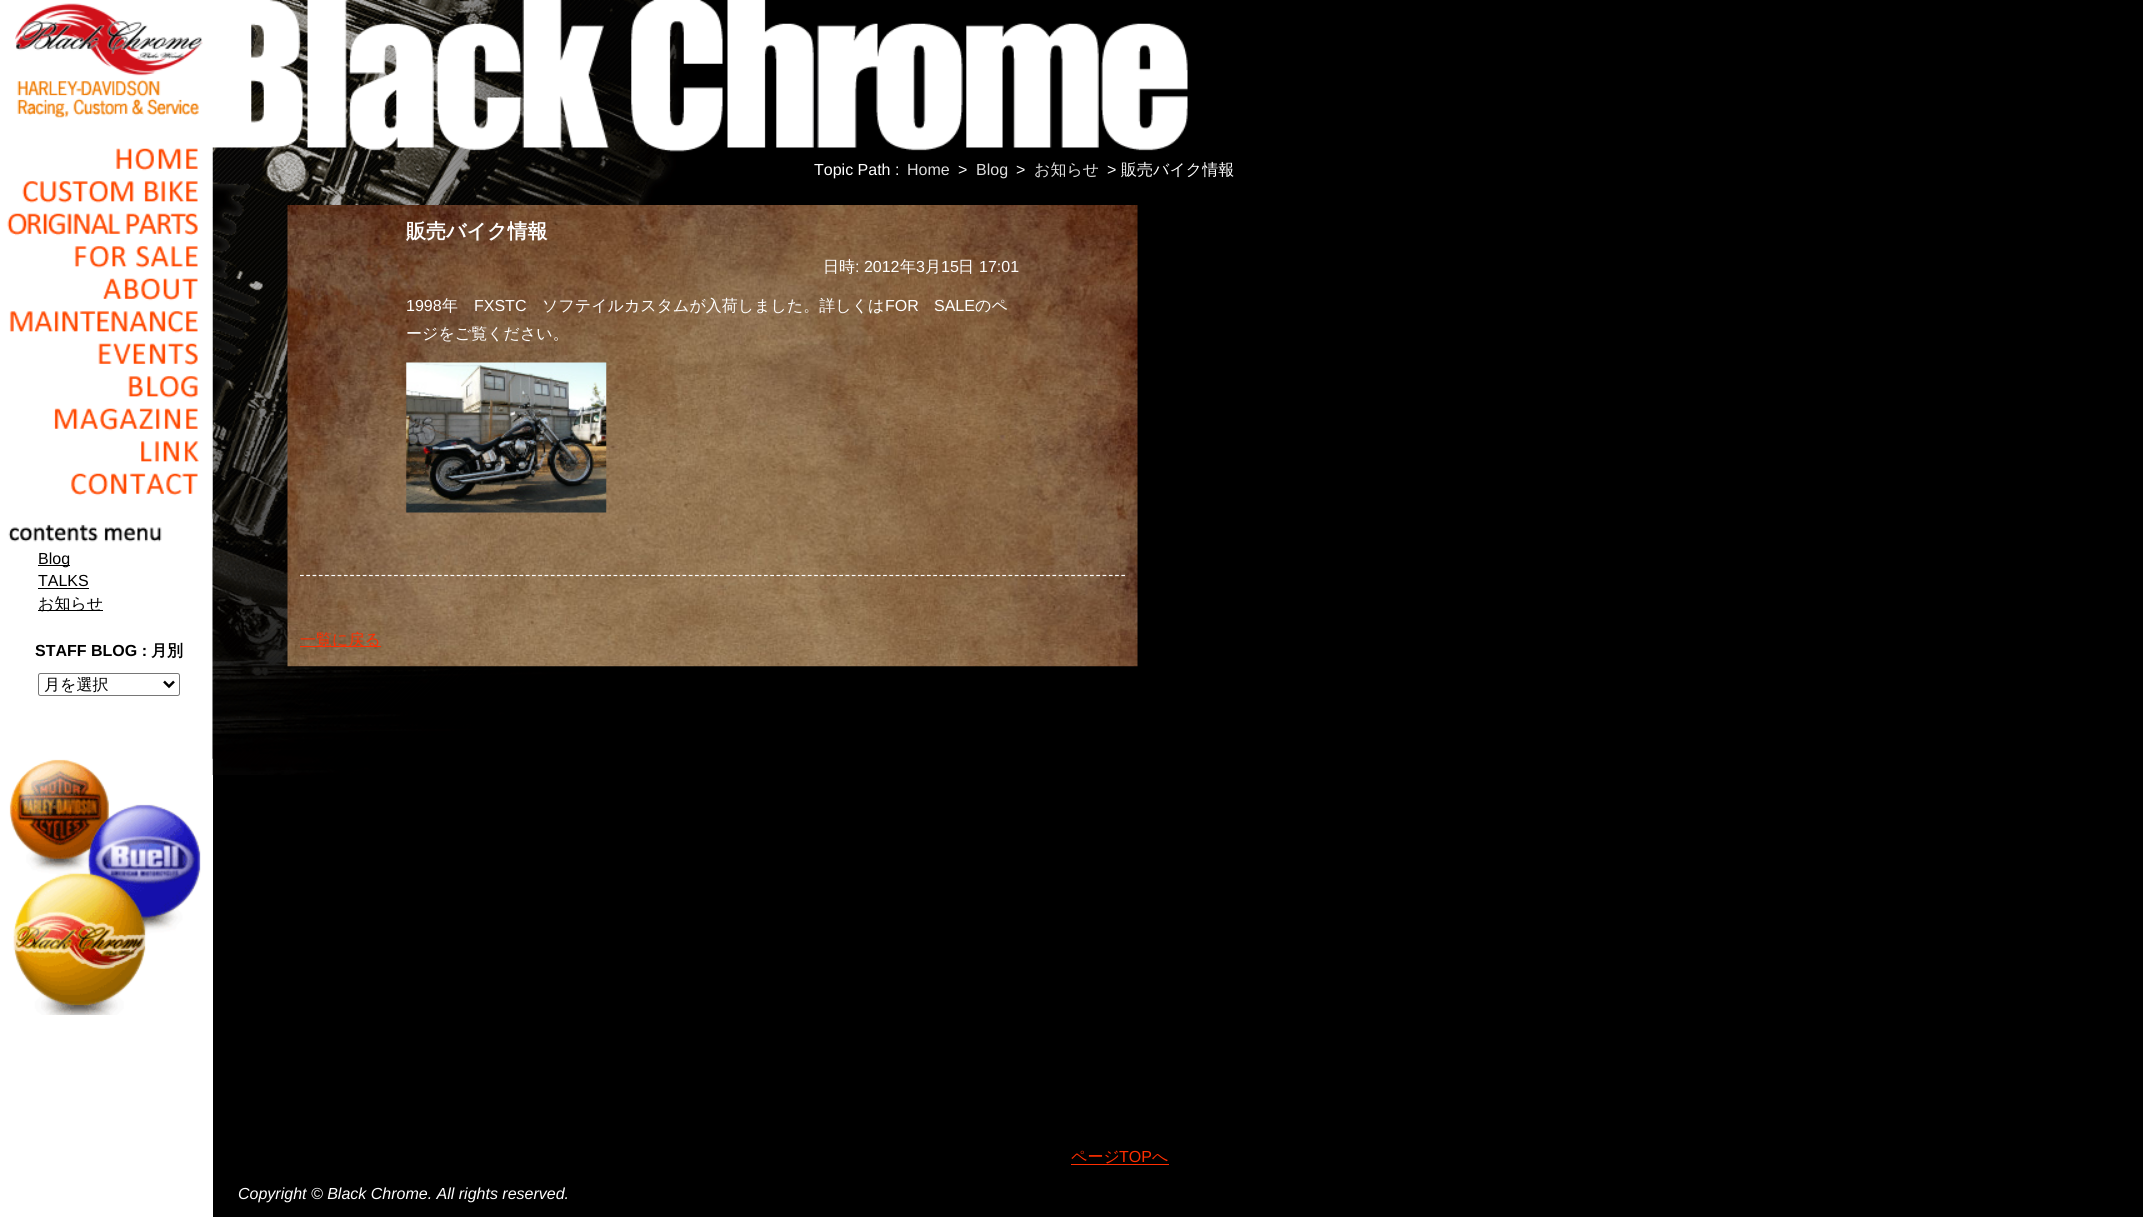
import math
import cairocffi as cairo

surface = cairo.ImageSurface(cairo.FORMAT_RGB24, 2143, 1217)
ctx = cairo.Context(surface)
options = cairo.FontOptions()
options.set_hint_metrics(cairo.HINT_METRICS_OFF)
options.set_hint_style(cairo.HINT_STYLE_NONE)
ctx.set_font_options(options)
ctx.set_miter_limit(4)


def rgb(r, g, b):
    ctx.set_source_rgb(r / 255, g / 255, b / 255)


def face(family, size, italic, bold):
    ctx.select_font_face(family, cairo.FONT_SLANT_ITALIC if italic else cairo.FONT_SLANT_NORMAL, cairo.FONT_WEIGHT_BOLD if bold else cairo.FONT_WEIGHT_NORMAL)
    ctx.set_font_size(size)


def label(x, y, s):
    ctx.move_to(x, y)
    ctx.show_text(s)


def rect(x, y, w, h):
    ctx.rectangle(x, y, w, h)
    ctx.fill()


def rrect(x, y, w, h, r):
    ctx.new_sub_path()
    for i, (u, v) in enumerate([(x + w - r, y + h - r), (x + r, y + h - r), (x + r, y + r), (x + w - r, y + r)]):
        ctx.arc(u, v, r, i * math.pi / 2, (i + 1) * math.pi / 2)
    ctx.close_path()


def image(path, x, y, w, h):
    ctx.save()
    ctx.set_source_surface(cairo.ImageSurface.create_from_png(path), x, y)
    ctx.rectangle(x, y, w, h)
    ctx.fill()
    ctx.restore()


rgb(0, 0, 0)
ctx.paint()
rgb(255, 255, 255)
rect(0, 0, 213, 1217)
image('image0.png', 212, 0, 976, 775)
image('image1.png', 15, 3, 188, 115)
image('image2.png', 116, 147, 97, 28)
image('image3.png', 22, 175, 191, 33)
image('image4.png', 7, 207, 206, 33)
image('image5.png', 74, 240, 139, 33)
image('image6.png', 103, 272, 110, 33)
image('image7.png', 9, 305, 204, 33)
image('image8.png', 98, 337, 115, 33)
image('image9.png', 128, 370, 85, 33)
image('image10.png', 54, 402, 159, 33)
image('image11.png', 141, 435, 72, 33)
image('image12.png', 71, 467, 142, 33)
image('image13.png', 8, 518, 205, 30)
rgb(0, 0, 0)
rect(38, 565, 32, 1)
face('Liberation Sans', 16, 0, 0)
label(38, 564, 'Blog')
label(38, 586, 'TALKS')
rect(38, 588, 51, 1)
rect(38, 610, 65, 1)
face('WenQuanYi Zen Hei Medium', 16, 0, 0)
label(38, 609, 'お知らせ')
face('Liberation Sans', 16, 0, 1)
label(35, 656, 'STAFF BLOG :')
face('WenQuanYi Zen Hei', 16, 0, 1)
label(151, 656, '月別')
rrect(38.5, 673.5, 141, 22, 2)
rgb(118, 118, 118)
ctx.set_line_width(1)
ctx.stroke()
ctx.new_path()
ctx.move_to(164, 681.5)
ctx.line_to(169, 686.5)
ctx.line_to(174, 681.5)
rgb(0, 0, 0)
ctx.set_line_width(2.5)
ctx.stroke()
face('WenQuanYi Zen Hei Medium', 16, 0, 0)
label(44, 690, '月を選択')
image('image14.png', 9, 758, 204, 257)
image('image15.png', 287, 205, 851, 462)
face('Liberation Sans', 16, 0, 0)
rgb(255, 255, 255)
label(814, 175, 'Topic Path :')
rgb(222, 222, 222)
label(907, 175, 'Home')
rgb(255, 255, 255)
label(958, 175, '>')
rgb(222, 222, 222)
label(976, 175, 'Blog')
rgb(255, 255, 255)
label(1016, 175, '>')
face('WenQuanYi Zen Hei Medium', 16, 0, 0)
rgb(222, 222, 222)
label(1034, 175, 'お知らせ')
face('Liberation Sans', 16, 0, 0)
rgb(255, 255, 255)
label(1107, 175, '>')
face('WenQuanYi Zen Hei Medium', 16, 0, 0)
label(1121, 175, '販売バイク情報')
ctx.new_path()
ctx.move_to(300, 575.5)
ctx.line_to(1125, 575.5)
ctx.set_line_width(1.2)
ctx.set_dash([3.75, 2.52])
ctx.stroke()
face('WenQuanYi Zen Hei', 20, 0, 1)
label(406, 238, '販売バイク情報')
face('WenQuanYi Zen Hei Medium', 16, 0, 0)
label(823, 272, '日時')
face('Liberation Sans', 16, 0, 0)
label(855, 272, ': 2012')
face('WenQuanYi Zen Hei Medium', 16, 0, 0)
label(900, 272, '年')
face('Liberation Sans', 16, 0, 0)
label(916, 272, '3')
face('WenQuanYi Zen Hei Medium', 16, 0, 0)
label(925, 272, '月')
face('Liberation Sans', 16, 0, 0)
label(941, 272, '15')
face('WenQuanYi Zen Hei Medium', 16, 0, 0)
label(958, 272, '日')
face('Liberation Sans', 16, 0, 0)
label(979, 272, '17:01')
label(406, 311, '1998')
face('WenQuanYi Zen Hei Medium', 16, 0, 0)
label(442, 311, '年')
face('Liberation Sans', 16, 0, 0)
label(474, 311, 'FXSTC')
face('WenQuanYi Zen Hei Medium', 16, 0, 0)
label(542, 311, 'ソフテイルカスタムが入荷しました。詳しくは')
face('Liberation Sans', 16, 0, 0)
label(885, 311, 'FOR')
label(934, 311, 'SALE')
face('WenQuanYi Zen Hei Medium', 16, 0, 0)
label(975, 311, 'のペ')
label(406, 339, 'ージをご覧ください。')
image('image16.png', 406, 362, 201, 151)
rgb(255, 46, 0)
rect(300, 646, 81, 1)
label(300, 645, '一覧に戻る')
label(1071, 1162, 'ページ')
face('Liberation Sans', 16, 0, 0)
label(1119, 1162, 'TOP')
face('WenQuanYi Zen Hei Medium', 16, 0, 0)
label(1152, 1162, 'へ')
rect(1071, 1164, 98, 1)
face('Liberation Sans', 16, 1, 0)
rgb(255, 255, 255)
label(238, 1199, 'Copyright © Black Chrome. All rights reserved.')
surface.write_to_png('render.png')
